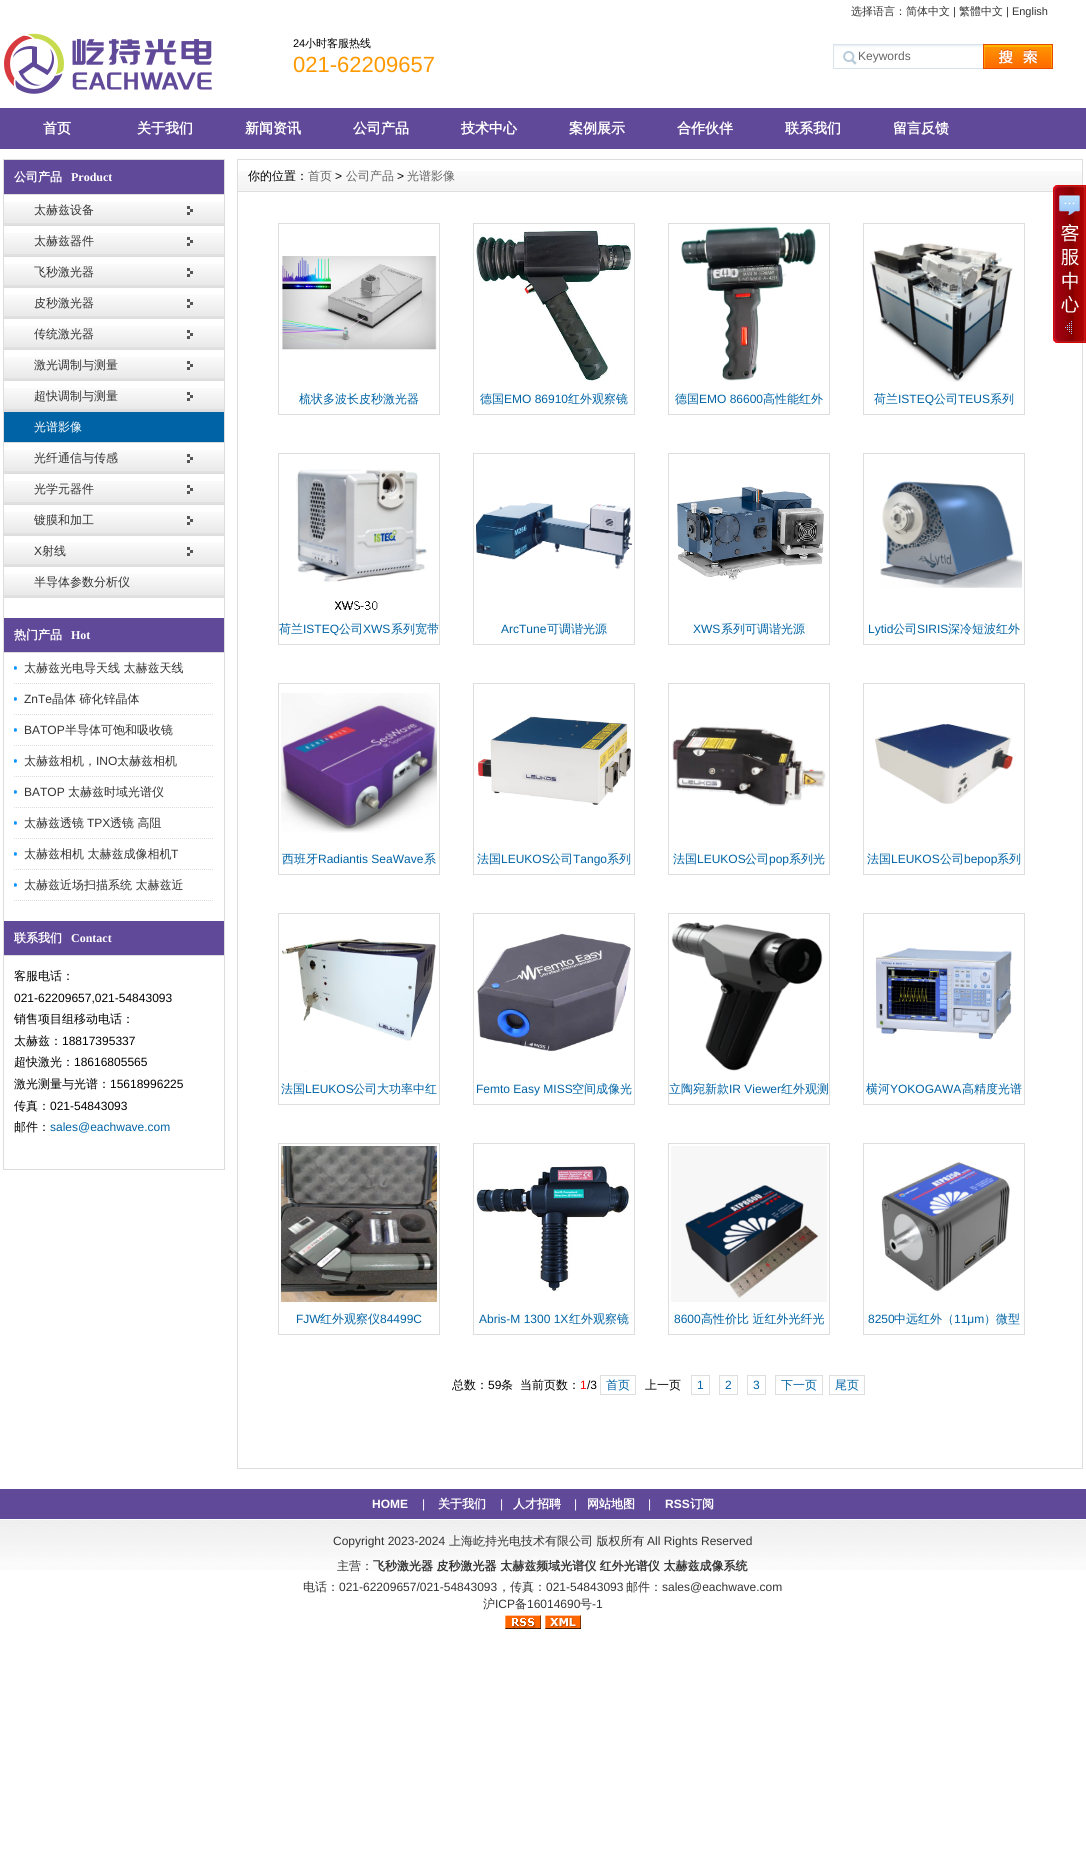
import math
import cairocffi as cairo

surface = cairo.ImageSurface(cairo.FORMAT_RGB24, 1086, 1876)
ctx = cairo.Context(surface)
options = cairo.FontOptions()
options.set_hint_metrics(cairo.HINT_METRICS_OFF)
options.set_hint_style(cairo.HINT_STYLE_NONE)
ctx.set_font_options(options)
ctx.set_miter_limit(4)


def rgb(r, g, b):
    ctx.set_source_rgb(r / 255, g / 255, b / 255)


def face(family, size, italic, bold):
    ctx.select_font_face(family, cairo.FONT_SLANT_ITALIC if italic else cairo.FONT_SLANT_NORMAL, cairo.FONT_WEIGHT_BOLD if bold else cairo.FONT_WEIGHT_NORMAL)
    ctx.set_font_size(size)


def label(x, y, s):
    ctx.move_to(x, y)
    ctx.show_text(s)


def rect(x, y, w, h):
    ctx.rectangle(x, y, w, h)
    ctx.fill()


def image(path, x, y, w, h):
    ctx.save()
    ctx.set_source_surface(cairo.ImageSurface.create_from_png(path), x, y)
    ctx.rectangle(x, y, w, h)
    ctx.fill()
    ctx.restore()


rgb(255, 255, 255)
ctx.paint()
face('WenQuanYi Zen Hei Medium', 11, 0, 0)
rgb(51, 51, 51)
label(851, 15, '选择语言：简体中文')
face('Liberation Sans', 11, 0, 0)
label(953, 15, '|')
face('WenQuanYi Zen Hei Medium', 11, 0, 0)
label(959, 15, '繁體中文')
face('Liberation Sans', 11, 0, 0)
label(1006, 15, '| English')
image('image0.png', 4, 33, 208, 61)
rgb(0, 0, 0)
label(293, 47, '24')
face('WenQuanYi Zen Hei Medium', 11, 0, 0)
label(305, 47, '小时客服热线')
face('Liberation Sans', 22, 0, 0)
rgb(255, 153, 0)
label(293, 72, '021-62209657')
image('image1.png', 833, 44, 220, 25)
face('Liberation Sans', 12, 0, 0)
rgb(102, 102, 102)
label(858, 60, 'Keywords')
rgb(97, 73, 153)
rect(0, 108, 1086, 41)
face('WenQuanYi Zen Hei', 14, 0, 1)
rgb(255, 255, 255)
label(43, 133, '首页')
label(137, 133, '关于我们')
label(245, 133, '新闻资讯')
label(353, 133, '公司产品')
label(461, 133, '技术中心')
label(569, 133, '案例展示')
label(677, 133, '合作伙伴')
label(785, 133, '联系我们')
label(893, 133, '留言反馈')
ctx.rectangle(3.5, 159.5, 221, 1010)
rgb(221, 221, 221)
ctx.set_line_width(1)
ctx.stroke()
rgb(97, 73, 153)
rect(4, 160, 220, 34)
rgb(221, 221, 221)
rect(4, 194, 220, 1)
face('WenQuanYi Zen Hei', 12, 0, 1)
rgb(255, 255, 255)
label(14, 181, '公司产品')
face('Liberation Serif', 12, 0, 1)
label(71, 181, 'Product')
image('image2.png', 4, 202, 220, 23)
image('image3.png', 187, 206, 6, 9)
rgb(221, 221, 221)
rect(4, 225, 220, 1)
face('WenQuanYi Zen Hei Medium', 12, 0, 0)
rgb(51, 51, 51)
label(34, 214, '太赫兹设备')
image('image2.png', 4, 233, 220, 23)
image('image3.png', 187, 237, 6, 9)
rgb(221, 221, 221)
rect(4, 256, 220, 1)
rgb(51, 51, 51)
label(34, 245, '太赫兹器件')
image('image2.png', 4, 264, 220, 23)
image('image3.png', 187, 268, 6, 9)
rgb(221, 221, 221)
rect(4, 287, 220, 1)
rgb(51, 51, 51)
label(34, 276, '飞秒激光器')
image('image2.png', 4, 295, 220, 23)
image('image3.png', 187, 299, 6, 9)
rgb(221, 221, 221)
rect(4, 318, 220, 1)
rgb(51, 51, 51)
label(34, 307, '皮秒激光器')
image('image2.png', 4, 326, 220, 23)
image('image3.png', 187, 330, 6, 9)
rgb(221, 221, 221)
rect(4, 349, 220, 1)
rgb(51, 51, 51)
label(34, 338, '传统激光器')
image('image2.png', 4, 357, 220, 23)
image('image3.png', 187, 361, 6, 9)
rgb(221, 221, 221)
rect(4, 380, 220, 1)
rgb(51, 51, 51)
label(34, 369, '激光调制与测量')
image('image2.png', 4, 388, 220, 23)
image('image3.png', 187, 392, 6, 9)
rgb(221, 221, 221)
rect(4, 411, 220, 1)
rgb(51, 51, 51)
label(34, 400, '超快调制与测量')
rgb(0, 99, 165)
rect(4, 412, 220, 30)
rgb(221, 221, 221)
rect(4, 442, 220, 1)
rgb(255, 255, 255)
label(34, 431, '光谱影像')
image('image2.png', 4, 450, 220, 23)
image('image3.png', 187, 454, 6, 9)
rgb(221, 221, 221)
rect(4, 473, 220, 1)
rgb(51, 51, 51)
label(34, 462, '光纤通信与传感')
image('image2.png', 4, 481, 220, 23)
image('image3.png', 187, 485, 6, 9)
rgb(221, 221, 221)
rect(4, 504, 220, 1)
rgb(51, 51, 51)
label(34, 493, '光学元器件')
image('image2.png', 4, 512, 220, 23)
image('image3.png', 187, 516, 6, 9)
rgb(221, 221, 221)
rect(4, 535, 220, 1)
rgb(51, 51, 51)
label(34, 524, '镀膜和加工')
image('image2.png', 4, 543, 220, 23)
image('image3.png', 187, 547, 6, 9)
rgb(221, 221, 221)
rect(4, 566, 220, 1)
face('Liberation Sans', 12, 0, 0)
rgb(51, 51, 51)
label(34, 555, 'X')
face('WenQuanYi Zen Hei Medium', 12, 0, 0)
label(42, 555, '射线')
image('image2.png', 4, 574, 220, 23)
rgb(221, 221, 221)
rect(4, 597, 220, 1)
rgb(51, 51, 51)
label(34, 586, '半导体参数分析仪')
rgb(97, 73, 153)
rect(4, 618, 220, 34)
rgb(221, 221, 221)
rect(4, 652, 220, 1)
face('WenQuanYi Zen Hei', 12, 0, 1)
rgb(255, 255, 255)
label(14, 639, '热门产品')
face('Liberation Serif', 12, 0, 1)
label(71, 639, 'Hot')
image('image4.png', 14, 665, 3, 5)
ctx.new_path()
ctx.move_to(14, 683.5)
ctx.line_to(214, 683.5)
rgb(221, 221, 221)
ctx.set_dash([1, 1])
ctx.stroke()
face('WenQuanYi Zen Hei Medium', 12, 0, 0)
rgb(51, 51, 51)
label(24, 672, '太赫兹光电导天线 太赫兹天线')
image('image4.png', 14, 696, 3, 5)
ctx.new_path()
ctx.move_to(14, 714.5)
ctx.line_to(214, 714.5)
rgb(221, 221, 221)
ctx.stroke()
face('Liberation Sans', 12, 0, 0)
rgb(51, 51, 51)
label(24, 703, 'ZnTe')
face('WenQuanYi Zen Hei Medium', 12, 0, 0)
label(52, 703, '晶体 碲化锌晶体')
image('image4.png', 14, 727, 3, 5)
ctx.new_path()
ctx.move_to(14, 745.5)
ctx.line_to(214, 745.5)
rgb(221, 221, 221)
ctx.stroke()
face('Liberation Sans', 12, 0, 0)
rgb(51, 51, 51)
label(24, 734, 'BATOP')
face('WenQuanYi Zen Hei Medium', 12, 0, 0)
label(65, 734, '半导体可饱和吸收镜')
image('image4.png', 14, 758, 3, 5)
ctx.new_path()
ctx.move_to(14, 776.5)
ctx.line_to(214, 776.5)
rgb(221, 221, 221)
ctx.stroke()
rgb(51, 51, 51)
label(24, 765, '太赫兹相机，')
face('Liberation Sans', 12, 0, 0)
label(96, 765, 'INO')
face('WenQuanYi Zen Hei Medium', 12, 0, 0)
label(117, 765, '太赫兹相机')
image('image4.png', 14, 789, 3, 5)
ctx.new_path()
ctx.move_to(14, 807.5)
ctx.line_to(214, 807.5)
rgb(221, 221, 221)
ctx.stroke()
face('Liberation Sans', 12, 0, 0)
rgb(51, 51, 51)
label(24, 796, 'BATOP')
face('WenQuanYi Zen Hei Medium', 12, 0, 0)
label(68, 796, '太赫兹时域光谱仪')
image('image4.png', 14, 820, 3, 5)
ctx.new_path()
ctx.move_to(14, 838.5)
ctx.line_to(214, 838.5)
rgb(221, 221, 221)
ctx.stroke()
rgb(51, 51, 51)
label(24, 827, '太赫兹透镜')
face('Liberation Sans', 12, 0, 0)
label(87, 827, 'TPX')
face('WenQuanYi Zen Hei Medium', 12, 0, 0)
label(110, 827, '透镜 高阻')
image('image4.png', 14, 851, 3, 5)
ctx.new_path()
ctx.move_to(14, 869.5)
ctx.line_to(214, 869.5)
rgb(221, 221, 221)
ctx.stroke()
rgb(51, 51, 51)
label(24, 858, '太赫兹相机 太赫兹成像相机')
face('Liberation Sans', 12, 0, 0)
label(171, 858, 'T')
image('image4.png', 14, 882, 3, 5)
ctx.new_path()
ctx.move_to(14, 900.5)
ctx.line_to(214, 900.5)
rgb(221, 221, 221)
ctx.stroke()
face('WenQuanYi Zen Hei Medium', 12, 0, 0)
rgb(51, 51, 51)
label(24, 889, '太赫兹近场扫描系统 太赫兹近')
rgb(97, 73, 153)
rect(4, 921, 220, 34)
rgb(221, 221, 221)
rect(4, 955, 220, 1)
face('WenQuanYi Zen Hei', 12, 0, 1)
rgb(255, 255, 255)
label(14, 942, '联系我们')
face('Liberation Serif', 12, 0, 1)
label(71, 942, 'Contact')
face('WenQuanYi Zen Hei Medium', 12, 0, 0)
rgb(0, 0, 0)
label(14, 980, '客服电话：')
face('Liberation Sans', 12, 0, 0)
label(14, 1002, '021-62209657,021-54843093')
face('WenQuanYi Zen Hei Medium', 12, 0, 0)
label(14, 1023, '销售项目组移动电话：')
label(14, 1045, '太赫兹：')
face('Liberation Sans', 12, 0, 0)
label(62, 1045, '18817395337')
face('WenQuanYi Zen Hei Medium', 12, 0, 0)
label(14, 1066, '超快激光：')
face('Liberation Sans', 12, 0, 0)
label(74, 1066, '18616805565')
face('WenQuanYi Zen Hei Medium', 12, 0, 0)
label(14, 1088, '激光测量与光谱：')
face('Liberation Sans', 12, 0, 0)
label(110, 1088, '15618996225')
face('WenQuanYi Zen Hei Medium', 12, 0, 0)
label(14, 1110, '传真：')
face('Liberation Sans', 12, 0, 0)
label(50, 1110, '021-54843093')
face('WenQuanYi Zen Hei Medium', 12, 0, 0)
label(14, 1131, '邮件：')
face('Liberation Sans', 12, 0, 0)
rgb(0, 99, 165)
label(50, 1131, 'sales@eachwave.com')
ctx.rectangle(237.5, 159.5, 845, 1309)
rgb(221, 221, 221)
ctx.set_dash([])
ctx.stroke()
image('image5.png', 238, 171, 844, 21)
face('WenQuanYi Zen Hei Medium', 12, 0, 0)
rgb(0, 0, 0)
label(248, 180, '你的位置：')
rgb(102, 102, 102)
label(308, 180, '首页')
face('Liberation Sans', 12, 0, 0)
rgb(0, 0, 0)
label(335, 180, '>')
face('WenQuanYi Zen Hei Medium', 12, 0, 0)
rgb(102, 102, 102)
label(346, 180, '公司产品')
face('Liberation Sans', 12, 0, 0)
rgb(0, 0, 0)
label(397, 180, '>')
face('WenQuanYi Zen Hei Medium', 12, 0, 0)
rgb(102, 102, 102)
label(407, 180, '光谱影像')
ctx.rectangle(278.5, 223.5, 161, 191)
rgb(222, 222, 220)
ctx.stroke()
image('image6.png', 282, 256, 155, 94)
rgb(0, 99, 165)
label(299, 403, '梳状多波长皮秒激光器')
ctx.rectangle(473.5, 223.5, 161, 191)
rgb(222, 222, 220)
ctx.stroke()
image('image7.png', 476, 230, 155, 151)
rgb(0, 99, 165)
label(480, 403, '德国')
face('Liberation Sans', 12, 0, 0)
label(504, 403, 'EMO 86910')
face('WenQuanYi Zen Hei Medium', 12, 0, 0)
label(568, 403, '红外观察镜')
ctx.rectangle(668.5, 223.5, 161, 191)
rgb(222, 222, 220)
ctx.stroke()
image('image8.png', 681, 226, 135, 155)
rgb(0, 99, 165)
label(675, 403, '德国')
face('Liberation Sans', 12, 0, 0)
label(699, 403, 'EMO 86600')
face('WenQuanYi Zen Hei Medium', 12, 0, 0)
label(763, 403, '高性能红外')
ctx.rectangle(863.5, 223.5, 161, 191)
rgb(222, 222, 220)
ctx.stroke()
image('image9.png', 870, 243, 143, 139)
rgb(0, 99, 165)
label(874, 403, '荷兰')
face('Liberation Sans', 12, 0, 0)
label(898, 403, 'ISTEQ')
face('WenQuanYi Zen Hei Medium', 12, 0, 0)
label(934, 403, '公司')
face('Liberation Sans', 12, 0, 0)
label(958, 403, 'TEUS')
face('WenQuanYi Zen Hei Medium', 12, 0, 0)
label(990, 403, '系列')
ctx.rectangle(278.5, 453.5, 161, 191)
rgb(222, 222, 220)
ctx.stroke()
image('image10.png', 296, 469, 131, 141)
rgb(0, 99, 165)
label(279, 633, '荷兰')
face('Liberation Sans', 12, 0, 0)
label(303, 633, 'ISTEQ')
face('WenQuanYi Zen Hei Medium', 12, 0, 0)
label(339, 633, '公司')
face('Liberation Sans', 12, 0, 0)
label(363, 633, 'XWS')
face('WenQuanYi Zen Hei Medium', 12, 0, 0)
label(391, 633, '系列宽带')
ctx.rectangle(473.5, 453.5, 161, 191)
rgb(222, 222, 220)
ctx.stroke()
image('image11.png', 476, 502, 156, 67)
face('Liberation Sans', 12, 0, 0)
rgb(0, 99, 165)
label(501, 633, 'ArcTune')
face('WenQuanYi Zen Hei Medium', 12, 0, 0)
label(547, 633, '可调谐光源')
ctx.rectangle(668.5, 453.5, 161, 191)
rgb(222, 222, 220)
ctx.stroke()
image('image12.png', 677, 486, 147, 94)
face('Liberation Sans', 12, 0, 0)
rgb(0, 99, 165)
label(693, 633, 'XWS')
face('WenQuanYi Zen Hei Medium', 12, 0, 0)
label(721, 633, '系列可调谐光源')
ctx.rectangle(863.5, 453.5, 161, 191)
rgb(222, 222, 220)
ctx.stroke()
image('image13.png', 880, 481, 142, 107)
face('Liberation Sans', 12, 0, 0)
rgb(0, 99, 165)
label(868, 633, 'Lytid')
face('WenQuanYi Zen Hei Medium', 12, 0, 0)
label(893, 633, '公司')
face('Liberation Sans', 12, 0, 0)
label(917, 633, 'SIRIS')
face('WenQuanYi Zen Hei Medium', 12, 0, 0)
label(948, 633, '深冷短波红外')
ctx.rectangle(278.5, 683.5, 161, 191)
rgb(222, 222, 220)
ctx.stroke()
image('image14.png', 281, 693, 156, 140)
rgb(0, 99, 165)
label(282, 863, '西班牙')
face('Liberation Sans', 12, 0, 0)
label(318, 863, 'Radiantis SeaWave')
face('WenQuanYi Zen Hei Medium', 12, 0, 0)
label(424, 863, '系')
ctx.rectangle(473.5, 683.5, 161, 191)
rgb(222, 222, 220)
ctx.stroke()
image('image15.png', 478, 716, 153, 89)
rgb(0, 99, 165)
label(477, 863, '法国')
face('Liberation Sans', 12, 0, 0)
label(501, 863, 'LEUKOS')
face('WenQuanYi Zen Hei Medium', 12, 0, 0)
label(549, 863, '公司')
face('Liberation Sans', 12, 0, 0)
label(573, 863, 'Tango')
face('WenQuanYi Zen Hei Medium', 12, 0, 0)
label(607, 863, '系列')
ctx.rectangle(668.5, 683.5, 161, 191)
rgb(222, 222, 220)
ctx.stroke()
image('image16.png', 672, 726, 154, 80)
rgb(0, 99, 165)
label(673, 863, '法国')
face('Liberation Sans', 12, 0, 0)
label(697, 863, 'LEUKOS')
face('WenQuanYi Zen Hei Medium', 12, 0, 0)
label(745, 863, '公司')
face('Liberation Sans', 12, 0, 0)
label(769, 863, 'pop')
face('WenQuanYi Zen Hei Medium', 12, 0, 0)
label(789, 863, '系列光')
ctx.rectangle(863.5, 683.5, 161, 191)
rgb(222, 222, 220)
ctx.stroke()
image('image17.png', 875, 724, 139, 80)
rgb(0, 99, 165)
label(867, 863, '法国')
face('Liberation Sans', 12, 0, 0)
label(891, 863, 'LEUKOS')
face('WenQuanYi Zen Hei Medium', 12, 0, 0)
label(940, 863, '公司')
face('Liberation Sans', 12, 0, 0)
label(964, 863, 'bepop')
face('WenQuanYi Zen Hei Medium', 12, 0, 0)
label(997, 863, '系列')
ctx.rectangle(278.5, 913.5, 161, 191)
rgb(222, 222, 220)
ctx.stroke()
image('image18.png', 282, 938, 154, 134)
rgb(0, 99, 165)
label(281, 1093, '法国')
face('Liberation Sans', 12, 0, 0)
label(305, 1093, 'LEUKOS')
face('WenQuanYi Zen Hei Medium', 12, 0, 0)
label(353, 1093, '公司大功率中红')
ctx.rectangle(473.5, 913.5, 161, 191)
rgb(222, 222, 220)
ctx.stroke()
image('image19.png', 477, 933, 154, 119)
face('Liberation Sans', 12, 0, 0)
rgb(0, 99, 165)
label(476, 1093, 'Femto Easy MISS')
face('WenQuanYi Zen Hei Medium', 12, 0, 0)
label(572, 1093, '空间成像光')
ctx.rectangle(668.5, 913.5, 161, 191)
rgb(222, 222, 220)
ctx.stroke()
image('image20.png', 671, 922, 152, 149)
rgb(0, 99, 165)
label(669, 1093, '立陶宛新款')
face('Liberation Sans', 12, 0, 0)
label(729, 1093, 'IR Viewer')
face('WenQuanYi Zen Hei Medium', 12, 0, 0)
label(781, 1093, '红外观测')
ctx.rectangle(863.5, 913.5, 161, 191)
rgb(222, 222, 220)
ctx.stroke()
image('image21.png', 875, 948, 137, 92)
rgb(0, 99, 165)
label(866, 1093, '横河')
face('Liberation Sans', 12, 0, 0)
label(890, 1093, 'YOKOGAWA')
face('WenQuanYi Zen Hei Medium', 12, 0, 0)
label(962, 1093, '高精度光谱')
ctx.rectangle(278.5, 1143.5, 161, 191)
rgb(222, 222, 220)
ctx.stroke()
image('image22.png', 281, 1146, 156, 156)
face('Liberation Sans', 12, 0, 0)
rgb(0, 99, 165)
label(296, 1323, 'FJW')
face('WenQuanYi Zen Hei Medium', 12, 0, 0)
label(320, 1323, '红外观察仪')
face('Liberation Sans', 12, 0, 0)
label(380, 1323, '84499C')
ctx.rectangle(473.5, 1143.5, 161, 191)
rgb(222, 222, 220)
ctx.stroke()
image('image23.png', 476, 1166, 154, 126)
rgb(0, 99, 165)
label(479, 1323, 'Abris-M 1300 1X')
face('WenQuanYi Zen Hei Medium', 12, 0, 0)
label(569, 1323, '红外观察镜')
ctx.rectangle(668.5, 1143.5, 161, 191)
rgb(222, 222, 220)
ctx.stroke()
image('image24.png', 671, 1146, 156, 156)
face('Liberation Sans', 12, 0, 0)
rgb(0, 99, 165)
label(674, 1323, '8600')
face('WenQuanYi Zen Hei Medium', 12, 0, 0)
label(701, 1323, '高性价比 近红外光纤光')
ctx.rectangle(863.5, 1143.5, 161, 191)
rgb(222, 222, 220)
ctx.stroke()
image('image25.png', 881, 1162, 129, 130)
face('Liberation Sans', 12, 0, 0)
rgb(0, 99, 165)
label(868, 1323, '8250')
face('WenQuanYi Zen Hei Medium', 12, 0, 0)
label(894, 1323, '中远红外（')
face('Liberation Sans', 12, 0, 0)
label(954, 1323, '11μm')
face('WenQuanYi Zen Hei Medium', 12, 0, 0)
label(984, 1323, '）微型')
rgb(0, 0, 0)
label(452, 1389, '总数：')
face('Liberation Sans', 12, 0, 0)
label(488, 1389, '59')
face('WenQuanYi Zen Hei Medium', 12, 0, 0)
label(501, 1389, '条')
label(520, 1389, '当前页数：')
face('Liberation Sans', 12, 0, 0)
rgb(255, 0, 0)
label(580, 1389, '1')
rgb(0, 0, 0)
label(587, 1389, '/3')
ctx.rectangle(600.5, 1375.5, 35, 19)
rgb(222, 222, 220)
ctx.stroke()
face('WenQuanYi Zen Hei Medium', 12, 0, 0)
rgb(0, 99, 165)
label(606, 1389, '首页')
rgb(0, 0, 0)
label(645, 1389, '上一页')
ctx.rectangle(691.5, 1375.5, 18, 19)
rgb(222, 222, 220)
ctx.stroke()
face('Liberation Sans', 12, 0, 0)
rgb(0, 99, 165)
label(697, 1389, '1')
ctx.rectangle(719.5, 1375.5, 18, 19)
rgb(222, 222, 220)
ctx.stroke()
rgb(0, 99, 165)
label(725, 1389, '2')
ctx.rectangle(747.5, 1375.5, 18, 19)
rgb(222, 222, 220)
ctx.stroke()
rgb(0, 99, 165)
label(753, 1389, '3')
ctx.rectangle(775.5, 1375.5, 47, 19)
rgb(222, 222, 220)
ctx.stroke()
face('WenQuanYi Zen Hei Medium', 12, 0, 0)
rgb(0, 99, 165)
label(781, 1389, '下一页')
ctx.rectangle(829.5, 1375.5, 35, 19)
rgb(222, 222, 220)
ctx.stroke()
rgb(0, 99, 165)
label(835, 1389, '尾页')
image('image26.png', 0, 1520, 1086, 50)
rgb(97, 73, 153)
rect(0, 1489, 1086, 30)
face('Liberation Sans', 12, 0, 1)
rgb(255, 255, 255)
label(372, 1508, 'HOME')
face('Liberation Sans', 12, 0, 0)
label(422, 1508, '|')
face('WenQuanYi Zen Hei', 12, 0, 1)
label(438, 1508, '关于我们')
face('Liberation Sans', 12, 0, 0)
label(500, 1508, '|')
face('WenQuanYi Zen Hei', 12, 0, 1)
label(513, 1508, '人才招聘')
face('Liberation Sans', 12, 0, 0)
label(574, 1508, '|')
face('WenQuanYi Zen Hei', 12, 0, 1)
label(587, 1508, '网站地图')
face('Liberation Sans', 12, 0, 0)
label(648, 1508, '|')
face('Liberation Sans', 12, 0, 1)
label(665, 1508, 'RSS')
face('WenQuanYi Zen Hei', 12, 0, 1)
label(690, 1508, '订阅')
face('Liberation Sans', 12, 0, 0)
rgb(51, 51, 51)
label(333, 1545, 'Copyright 2023-2024')
face('WenQuanYi Zen Hei Medium', 12, 0, 0)
label(449, 1545, '上海屹持光电技术有限公司 版权所有')
face('Liberation Sans', 12, 0, 0)
label(647, 1545, 'All Rights Reserved')
face('WenQuanYi Zen Hei Medium', 12, 0, 0)
label(337, 1570, '主营：')
face('WenQuanYi Zen Hei', 12, 0, 1)
label(373, 1570, '飞秒激光器 皮秒激光器 太赫兹频域光谱仪 红外光谱仪 太赫兹成像系统')
face('WenQuanYi Zen Hei Medium', 12, 0, 0)
label(303, 1591, '电话：')
face('Liberation Sans', 12, 0, 0)
label(339, 1591, '021-62209657/021-54843093')
face('WenQuanYi Zen Hei Medium', 12, 0, 0)
label(498, 1591, '，传真：')
face('Liberation Sans', 12, 0, 0)
label(546, 1591, '021-54843093')
face('WenQuanYi Zen Hei Medium', 12, 0, 0)
label(626, 1591, '邮件：')
face('Liberation Sans', 12, 0, 0)
label(662, 1591, 'sales@eachwave.com')
face('WenQuanYi Zen Hei Medium', 12, 0, 0)
label(483, 1608, '沪')
face('Liberation Sans', 12, 0, 0)
label(495, 1608, 'ICP')
face('WenQuanYi Zen Hei Medium', 12, 0, 0)
label(515, 1608, '备')
face('Liberation Sans', 12, 0, 0)
label(527, 1608, '16014690')
face('WenQuanYi Zen Hei Medium', 12, 0, 0)
label(580, 1608, '号')
face('Liberation Sans', 12, 0, 0)
label(592, 1608, '-1')
image('image27.png', 505, 1615, 36, 14)
image('image28.png', 545, 1615, 36, 14)
image('image29.png', 1053, 185, 33, 158)
surface.write_to_png('render.png')
